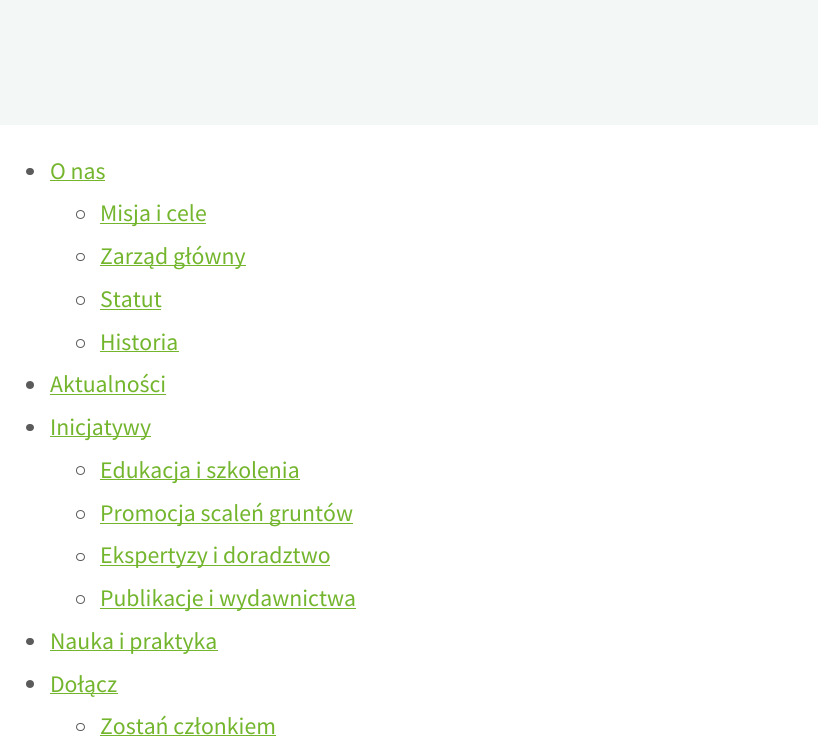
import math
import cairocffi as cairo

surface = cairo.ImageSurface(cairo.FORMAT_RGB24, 818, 737)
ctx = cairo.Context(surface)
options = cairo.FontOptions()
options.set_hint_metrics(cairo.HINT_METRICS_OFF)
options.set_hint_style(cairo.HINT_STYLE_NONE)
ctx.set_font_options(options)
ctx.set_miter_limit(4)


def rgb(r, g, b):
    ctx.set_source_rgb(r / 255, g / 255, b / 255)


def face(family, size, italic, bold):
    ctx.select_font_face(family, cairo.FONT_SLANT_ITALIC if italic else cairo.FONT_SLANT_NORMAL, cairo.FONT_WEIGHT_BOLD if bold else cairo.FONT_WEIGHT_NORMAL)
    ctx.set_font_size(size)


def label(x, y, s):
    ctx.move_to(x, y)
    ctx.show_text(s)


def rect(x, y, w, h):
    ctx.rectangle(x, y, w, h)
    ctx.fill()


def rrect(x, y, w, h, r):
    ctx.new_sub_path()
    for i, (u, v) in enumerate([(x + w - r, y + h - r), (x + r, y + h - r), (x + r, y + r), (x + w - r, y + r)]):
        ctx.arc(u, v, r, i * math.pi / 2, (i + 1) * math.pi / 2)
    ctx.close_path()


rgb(243, 247, 245)
ctx.paint()
rgb(255, 255, 255)
rect(0, 125, 818, 612)
rgb(91, 91, 91)
rrect(26, 168, 8, 7, 3.5)
ctx.fill()
face('Source Sans Pro', 23.75, 0, 0)
rgb(115, 181, 45)
label(50, 179, 'O nas')
rect(50, 180, 55, 1)
ctx.new_path()
ctx.arc(80.5, 214.5, 4, 0, 2 * math.pi)
rgb(91, 91, 91)
ctx.set_line_width(1)
ctx.stroke()
rgb(115, 181, 45)
rect(100, 223, 106, 1)
label(100, 221, 'Misja i cele')
rrect(76.5, 253.5, 8, 7, 3.5)
rgb(91, 91, 91)
ctx.stroke()
rgb(115, 181, 45)
rect(100, 265, 146, 1)
label(100, 264, 'Zarząd główny')
ctx.new_path()
ctx.arc(80.5, 300.5, 4, 0, 2 * math.pi)
rgb(91, 91, 91)
ctx.stroke()
rgb(115, 181, 45)
label(100, 307, 'Statut')
rect(100, 309, 61, 1)
ctx.new_path()
ctx.arc(80.5, 343.5, 4, 0, 2 * math.pi)
rgb(91, 91, 91)
ctx.stroke()
rgb(115, 181, 45)
label(100, 350, 'Historia')
rect(100, 351, 79, 1)
rgb(91, 91, 91)
ctx.new_path()
ctx.arc(30, 385, 4, 0, 2 * math.pi)
ctx.fill()
rgb(115, 181, 45)
label(50, 392, 'Aktualności')
rect(50, 394, 116, 1)
rgb(91, 91, 91)
rrect(26, 424, 8, 7, 3.5)
ctx.fill()
rgb(115, 181, 45)
rect(50, 436, 101, 1)
label(50, 435, 'Inicjatywy')
ctx.new_path()
ctx.arc(80.5, 470.5, 4, 0, 2 * math.pi)
rgb(91, 91, 91)
ctx.stroke()
rgb(115, 181, 45)
rect(100, 479, 200, 1)
label(100, 478, 'Edukacja i szkolenia')
ctx.new_path()
ctx.arc(80.5, 514.5, 4, 0, 2 * math.pi)
rgb(91, 91, 91)
ctx.stroke()
rgb(115, 181, 45)
rect(100, 523, 253, 1)
label(100, 521, 'Promocja scaleń gruntów')
rrect(76.5, 553.5, 8, 7, 3.5)
rgb(91, 91, 91)
ctx.stroke()
rgb(115, 181, 45)
rect(100, 565, 230, 1)
label(100, 563, 'Ekspertyzy i doradztwo')
ctx.new_path()
ctx.arc(80.5, 599.5, 4, 0, 2 * math.pi)
rgb(91, 91, 91)
ctx.stroke()
rgb(115, 181, 45)
rect(100, 608, 256, 1)
label(100, 606, 'Publikacje i wydawnictwa')
rgb(91, 91, 91)
rrect(26, 638, 8, 7, 3.5)
ctx.fill()
rgb(115, 181, 45)
rect(50, 650, 168, 1)
label(50, 649, 'Nauka i praktyka')
rgb(91, 91, 91)
ctx.new_path()
ctx.arc(30, 684, 4, 0, 2 * math.pi)
ctx.fill()
rgb(115, 181, 45)
rect(50, 693, 68, 1)
label(50, 692, 'Dołącz')
rrect(76.5, 723.5, 8, 7, 3.5)
rgb(91, 91, 91)
ctx.stroke()
rgb(115, 181, 45)
label(100, 734, 'Zostań członkiem')
rect(100, 735, 176, 1)
surface.write_to_png('render.png')
